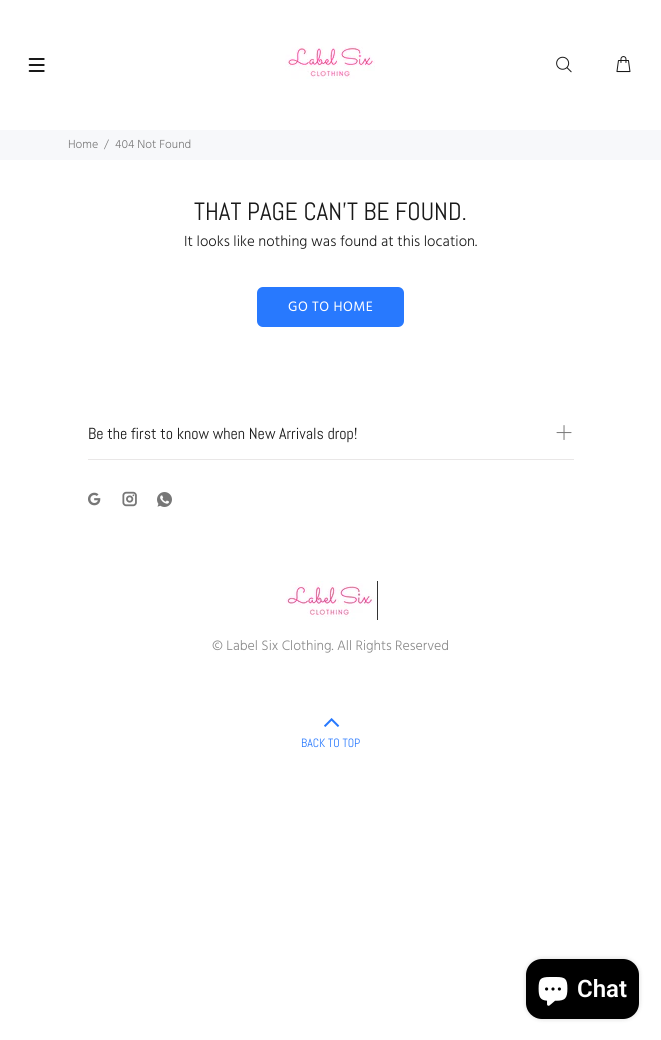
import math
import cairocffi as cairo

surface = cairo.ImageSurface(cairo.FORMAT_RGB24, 661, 1040)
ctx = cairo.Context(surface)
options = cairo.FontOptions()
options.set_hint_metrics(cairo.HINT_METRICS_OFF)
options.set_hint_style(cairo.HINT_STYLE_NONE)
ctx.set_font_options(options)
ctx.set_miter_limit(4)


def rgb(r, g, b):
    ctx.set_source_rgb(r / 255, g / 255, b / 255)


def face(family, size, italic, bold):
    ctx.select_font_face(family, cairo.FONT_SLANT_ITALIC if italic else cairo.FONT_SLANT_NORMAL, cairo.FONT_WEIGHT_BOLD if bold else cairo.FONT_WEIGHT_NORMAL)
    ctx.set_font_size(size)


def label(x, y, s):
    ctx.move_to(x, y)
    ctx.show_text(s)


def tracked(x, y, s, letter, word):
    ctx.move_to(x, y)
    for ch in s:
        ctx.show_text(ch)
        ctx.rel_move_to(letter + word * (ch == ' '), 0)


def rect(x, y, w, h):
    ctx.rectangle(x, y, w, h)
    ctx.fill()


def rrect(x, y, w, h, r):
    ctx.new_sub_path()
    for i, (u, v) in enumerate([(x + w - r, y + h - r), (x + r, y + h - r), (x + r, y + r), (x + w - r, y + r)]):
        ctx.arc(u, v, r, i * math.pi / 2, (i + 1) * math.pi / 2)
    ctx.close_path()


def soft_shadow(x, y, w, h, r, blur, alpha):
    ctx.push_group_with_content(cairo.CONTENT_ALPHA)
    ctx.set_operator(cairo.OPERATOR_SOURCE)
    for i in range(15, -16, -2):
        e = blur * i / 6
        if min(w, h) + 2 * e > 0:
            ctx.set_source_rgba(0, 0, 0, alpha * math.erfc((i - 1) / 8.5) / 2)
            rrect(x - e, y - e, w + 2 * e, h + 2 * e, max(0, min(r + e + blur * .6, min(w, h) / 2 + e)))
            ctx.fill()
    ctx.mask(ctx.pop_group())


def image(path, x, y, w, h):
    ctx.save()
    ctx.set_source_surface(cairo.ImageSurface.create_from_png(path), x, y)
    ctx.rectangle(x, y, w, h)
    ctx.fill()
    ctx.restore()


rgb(255, 255, 255)
ctx.paint()
image('image0.png', 28, 58, 17, 14)
image('image1.png', 285, 46, 90, 33)
image('image2.png', 556, 56, 16, 17)
image('image3.png', 616, 56, 15, 17)
rgb(247, 248, 250)
rect(0, 130, 661, 30)
face('Hind Light', 12, 0, 0)
rgb(119, 119, 119)
label(68, 148, 'Home')
label(104, 148, '/')
label(115, 148, '404 Not Found')
face('Abel', 25, 0, 0)
rgb(25, 25, 25)
label(194, 220, 'THAT PAGE CAN’T BE FOUND.')
face('Hind Light', 15, 0, 0)
label(184, 246, 'It looks like nothing was found at this location.')
rgb(40, 121, 254)
rrect(257, 287, 147, 40, 6)
ctx.fill()
face('Hind', 14, 0, 0)
rgb(255, 255, 255)
tracked(288, 311, 'GO TO HOME', 0.5, 0)
rgb(233, 231, 231)
rect(88, 459, 486, 1)
face('Abel', 16, 0, 0)
rgb(25, 25, 25)
label(88, 439, 'Be the first to know when New Arrivals drop!')
image('image4.png', 556, 425, 16, 15)
image('image5.png', 88, 492, 13, 14)
image('image6.png', 122, 491, 15, 16)
image('image7.png', 157, 492, 15, 15)
image('image8.png', 286, 581, 92, 39)
face('Hind Light', 14, 0, 0)
rgb(136, 136, 136)
label(212, 650, '© Label Six Clothing. All Rights Reserved')
image('image9.png', 324, 718, 16, 9)
face('Abel', 12, 0, 0)
rgb(40, 121, 254)
label(301, 747, 'BACK TO TOP')
rgb(0, 0, 0)
soft_shadow(526, 959, 113, 60, 16, 2.5, 0.15)
rgb(0, 0, 0)
rrect(526, 959, 113, 60, 16)
ctx.fill()
image('image10.png', 538, 977, 30, 29)
face('Roboto SemiBold', 24, 0, 0)
rgb(255, 255, 255)
label(577, 997, 'Chat')
surface.write_to_png('render.png')
